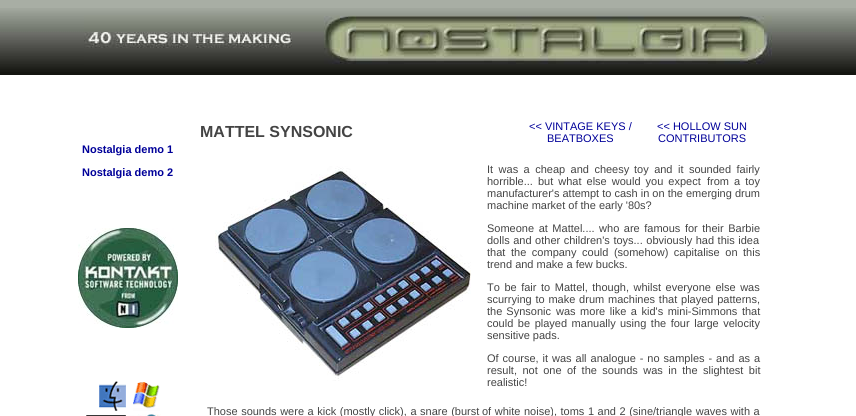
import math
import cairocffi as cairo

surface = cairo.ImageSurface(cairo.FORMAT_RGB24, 856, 416)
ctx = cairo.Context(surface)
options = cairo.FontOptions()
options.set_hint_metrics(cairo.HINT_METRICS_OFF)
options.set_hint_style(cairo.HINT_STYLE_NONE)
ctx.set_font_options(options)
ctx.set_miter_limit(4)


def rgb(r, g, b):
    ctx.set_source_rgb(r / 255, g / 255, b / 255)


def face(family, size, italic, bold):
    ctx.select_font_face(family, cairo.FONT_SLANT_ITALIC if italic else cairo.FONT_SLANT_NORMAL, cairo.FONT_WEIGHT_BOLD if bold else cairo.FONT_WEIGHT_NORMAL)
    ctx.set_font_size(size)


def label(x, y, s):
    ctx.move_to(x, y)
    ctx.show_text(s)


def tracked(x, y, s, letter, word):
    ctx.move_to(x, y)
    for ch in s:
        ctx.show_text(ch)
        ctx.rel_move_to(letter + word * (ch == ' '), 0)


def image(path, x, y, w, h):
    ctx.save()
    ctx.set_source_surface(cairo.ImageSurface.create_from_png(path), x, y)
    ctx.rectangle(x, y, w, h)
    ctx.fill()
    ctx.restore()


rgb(255, 255, 255)
ctx.paint()
image('image0.png', 0, 0, 856, 75)
image('image1.png', 84, 15, 688, 50)
face('Liberation Sans', 11, 0, 1)
rgb(0, 0, 153)
label(82, 153, 'Nostalgia demo 1')
label(82, 176, 'Nostalgia demo 2')
image('image2.png', 78, 228, 100, 100)
image('image3.png', 86, 381, 75, 35)
face('Liberation Sans', 16, 0, 1)
rgb(68, 68, 68)
label(200, 137, 'MATTEL SYNSONIC')
face('Liberation Sans', 11, 0, 0)
rgb(0, 0, 153)
label(529, 130, '<< VINTAGE KEYS /')
label(547, 142, 'BEATBOXES')
label(657, 130, '<< HOLLOW SUN')
label(658, 142, 'CONTRIBUTORS')
image('image4.png', 215, 166, 256, 215)
rgb(68, 68, 68)
tracked(487, 173, 'It was a cheap and cheesy', 0, 2.4)
tracked(634, 173, 'toy and it sounded fairly', 0, 2.4)
tracked(487, 185, 'horrible... but what else would you expect', 0, 2)
tracked(707, 185, 'from a toy', 0, 2)
label(487, 197, 'manufacturer\'s attempt to cash in on the emerging drum')
label(487, 209, 'machine market of the early \'80s?')
tracked(487, 232, 'Someone at Mattel.... who are famous for their Barbie', 0, 1.5)
tracked(487, 244, 'dolls and other children\'s toys... obviously had this idea', 0, 0.5)
label(487, 256, 'that')
tracked(511, 256, 'the company could (somehow) capitalise on this', 0, 2.5)
label(487, 268, 'trend and make a few bucks.')
tracked(487, 291, 'To be fair to Mattel, though, whilst everyone else was', 0, 1.5)
tracked(487, 303, 'scurrying to make drum machines that played patterns,', 0, 0.75)
tracked(487, 315, 'the Synsonic', 0, 1)
tracked(556, 315, 'was more like a kid\'s mini-Simmons that', 0, 1.5)
tracked(487, 327, 'could be played manually', 0, 1.5)
tracked(620, 327, 'using the four large velocity', 0, 1.5)
label(487, 339, 'sensitive pads.')
tracked(487, 362, 'Of course, it was all analogue - no samples - and as', 0, 0.9)
label(754, 362, 'a')
tracked(487, 374, 'result, not one of the sounds was in the slightest bit', 0, 2.4)
label(487, 386, 'realistic!')
tracked(207, 415, 'Those sounds were a kick (mostly click), a snare (burst', 0, 0.5)
tracked(482, 415, 'of white noise), toms 1 and 2 (sine/triangle waves with a', 0, 0.5)
surface.write_to_png('render.png')
